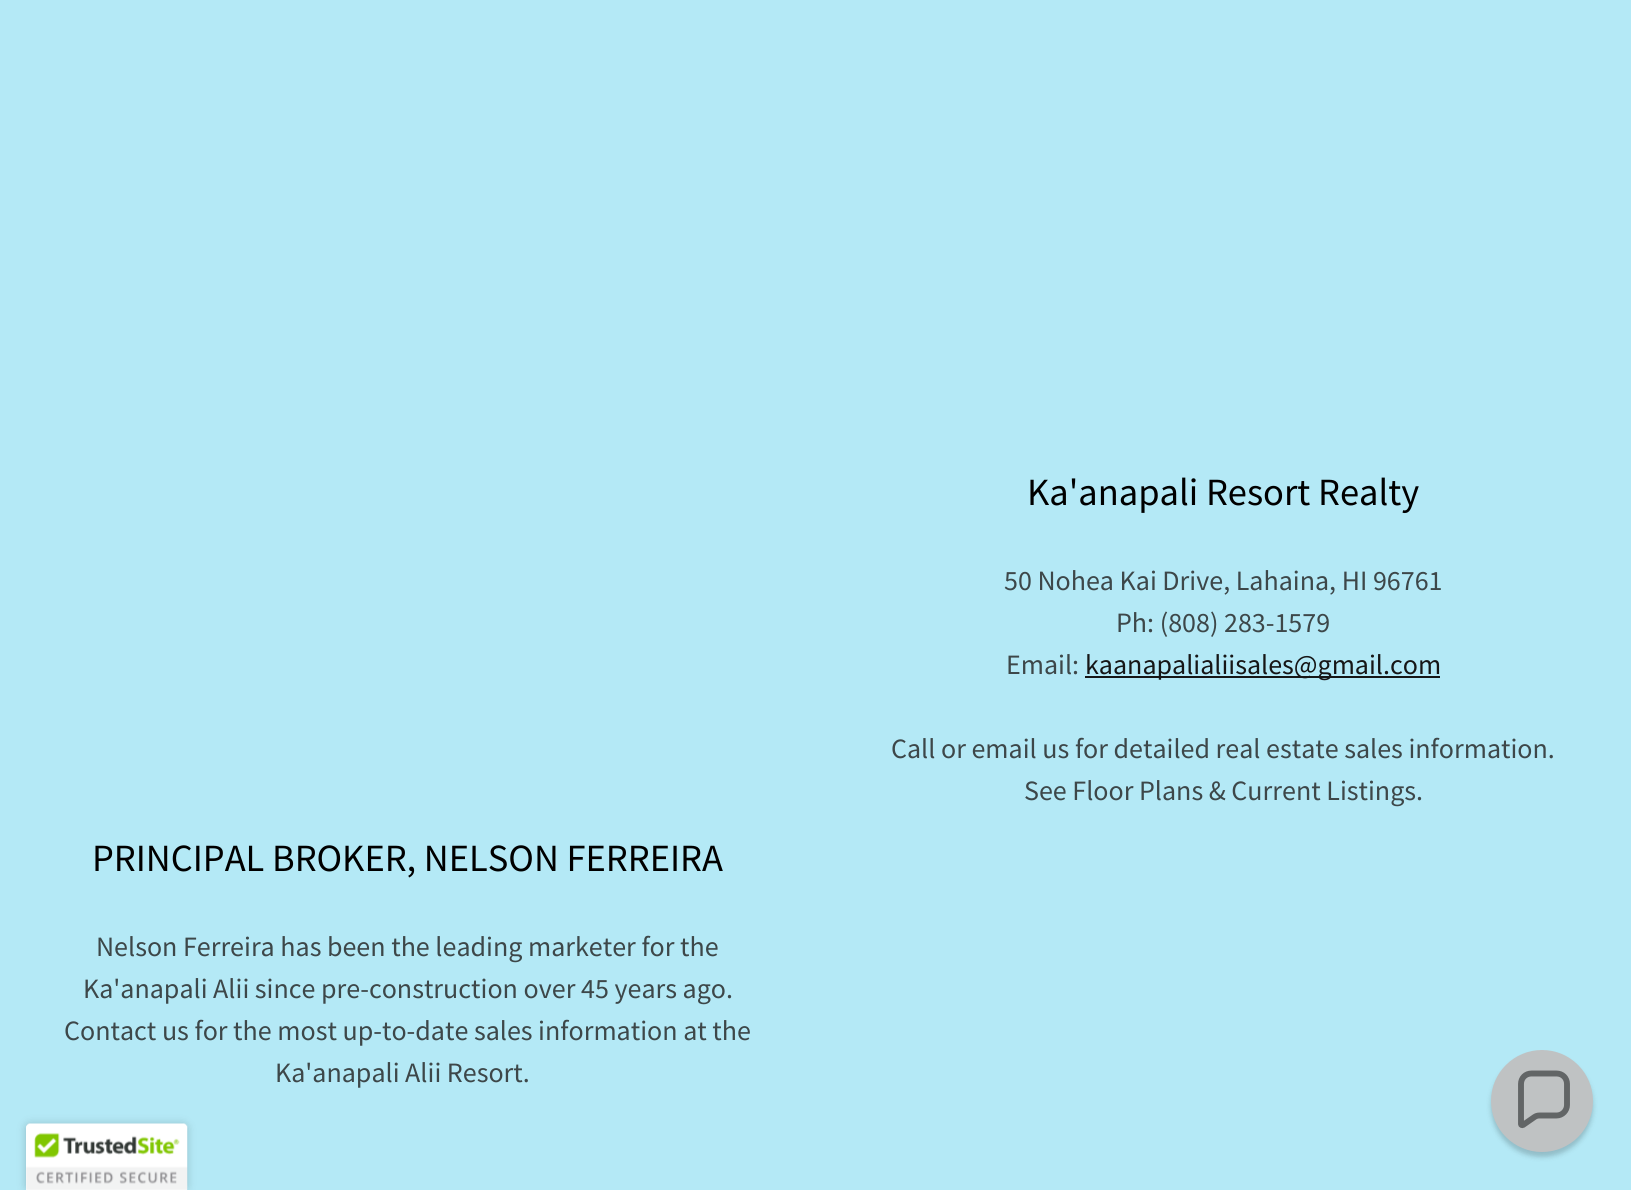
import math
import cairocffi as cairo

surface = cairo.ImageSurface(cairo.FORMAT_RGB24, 1631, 1190)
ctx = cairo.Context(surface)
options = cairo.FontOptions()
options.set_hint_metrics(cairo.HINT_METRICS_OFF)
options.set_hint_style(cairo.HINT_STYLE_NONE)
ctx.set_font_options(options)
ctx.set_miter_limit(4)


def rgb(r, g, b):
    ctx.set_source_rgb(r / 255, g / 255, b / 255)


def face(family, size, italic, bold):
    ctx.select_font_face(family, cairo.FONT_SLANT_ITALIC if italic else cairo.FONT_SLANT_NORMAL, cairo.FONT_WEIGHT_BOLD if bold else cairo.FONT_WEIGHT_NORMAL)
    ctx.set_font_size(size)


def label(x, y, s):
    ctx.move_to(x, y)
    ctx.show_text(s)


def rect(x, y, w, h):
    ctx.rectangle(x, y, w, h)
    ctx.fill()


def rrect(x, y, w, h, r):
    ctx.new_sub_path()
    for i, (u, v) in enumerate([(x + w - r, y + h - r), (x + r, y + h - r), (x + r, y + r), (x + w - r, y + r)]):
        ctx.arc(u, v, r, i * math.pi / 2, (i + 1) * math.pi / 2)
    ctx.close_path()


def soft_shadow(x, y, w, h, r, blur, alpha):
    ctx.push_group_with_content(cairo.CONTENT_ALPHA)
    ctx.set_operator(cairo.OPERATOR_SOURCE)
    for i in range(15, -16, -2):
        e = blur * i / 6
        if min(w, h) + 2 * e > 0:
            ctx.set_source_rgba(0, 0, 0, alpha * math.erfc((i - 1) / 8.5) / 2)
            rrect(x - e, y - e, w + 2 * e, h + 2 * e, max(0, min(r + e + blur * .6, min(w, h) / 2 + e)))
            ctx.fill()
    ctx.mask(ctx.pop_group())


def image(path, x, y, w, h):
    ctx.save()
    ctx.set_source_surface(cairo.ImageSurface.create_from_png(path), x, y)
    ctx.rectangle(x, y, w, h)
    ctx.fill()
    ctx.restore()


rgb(180, 233, 246)
ctx.paint()
face('Source Sans Pro', 38.5, 0, 0)
rgb(0, 0, 0)
label(1027, 505, 'Ka\'anapali Resort Realty')
face('Source Sans Pro', 28, 0, 0)
rgb(61, 71, 73)
label(1004, 590, '50 Nohea Kai Drive, Lahaina, HI 96761')
label(1116, 632, 'Ph: (808) 283-1579')
label(1006, 674, 'Email:')
rgb(22, 22, 22)
rect(1085, 676, 355, 2)
label(1085, 674, 'kaanapalialiisales@gmail.com')
rgb(61, 71, 73)
label(891, 758, 'Call or email us for detailed real estate sales information.')
label(1024, 800, 'See Floor Plans & Current Listings.')
face('Source Sans Pro', 38.5, 0, 0)
rgb(0, 0, 0)
label(92, 871, 'PRINCIPAL BROKER, NELSON FERREIRA')
face('Source Sans Pro', 28, 0, 0)
rgb(61, 71, 73)
label(96, 956, 'Nelson Ferreira has been the leading marketer for the')
label(83, 998, 'Ka\'anapali Alii since pre-construction over 45 years ago.')
label(64, 1040, 'Contact us for the most up-to-date sales information at the')
label(275, 1082, 'Ka\'anapali Alii Resort.')
rgb(0, 0, 0)
soft_shadow(26, 1124, 161, 66, 4, 4.5, 0.2)
rgb(255, 255, 255)
ctx.new_path()
ctx.move_to(30, 1124)
ctx.line_to(183, 1124)
ctx.curve_to(185, 1124, 187, 1126, 187, 1128)
ctx.line_to(187, 1190)
ctx.line_to(26, 1190)
ctx.line_to(26, 1128)
ctx.curve_to(26, 1126, 28, 1124, 30, 1124)
ctx.close_path()
ctx.fill()
image('image0.png', 26, 1123, 162, 67)
rgb(9, 12, 12)
soft_shadow(1491, 1055, 102, 102, 51, 2.5, 0.2)
rgb(191, 194, 195)
ctx.arc(1542, 1101, 51, 0, 2 * math.pi)
ctx.fill()
ctx.new_path()
ctx.move_to(1556.5, 1073.5)
ctx.line_to(1531.5, 1073.5)
ctx.curve_to(1525.5, 1073.5, 1521, 1078, 1521, 1084)
ctx.line_to(1521, 1124)
ctx.curve_to(1521, 1125, 1522, 1125.5, 1523, 1125)
ctx.line_to(1534.5, 1117)
ctx.curve_to(1536, 1116, 1537.5, 1115.5, 1539.5, 1115.5)
ctx.line_to(1556.5, 1115.5)
ctx.curve_to(1562.5, 1115.5, 1567, 1110.5, 1567, 1105)
ctx.line_to(1567, 1084)
ctx.curve_to(1567, 1078, 1562.5, 1073.5, 1556.5, 1073.5)
ctx.close_path()
rgb(98, 101, 102)
ctx.set_line_width(5.9)
ctx.stroke()
surface.write_to_png('render.png')
